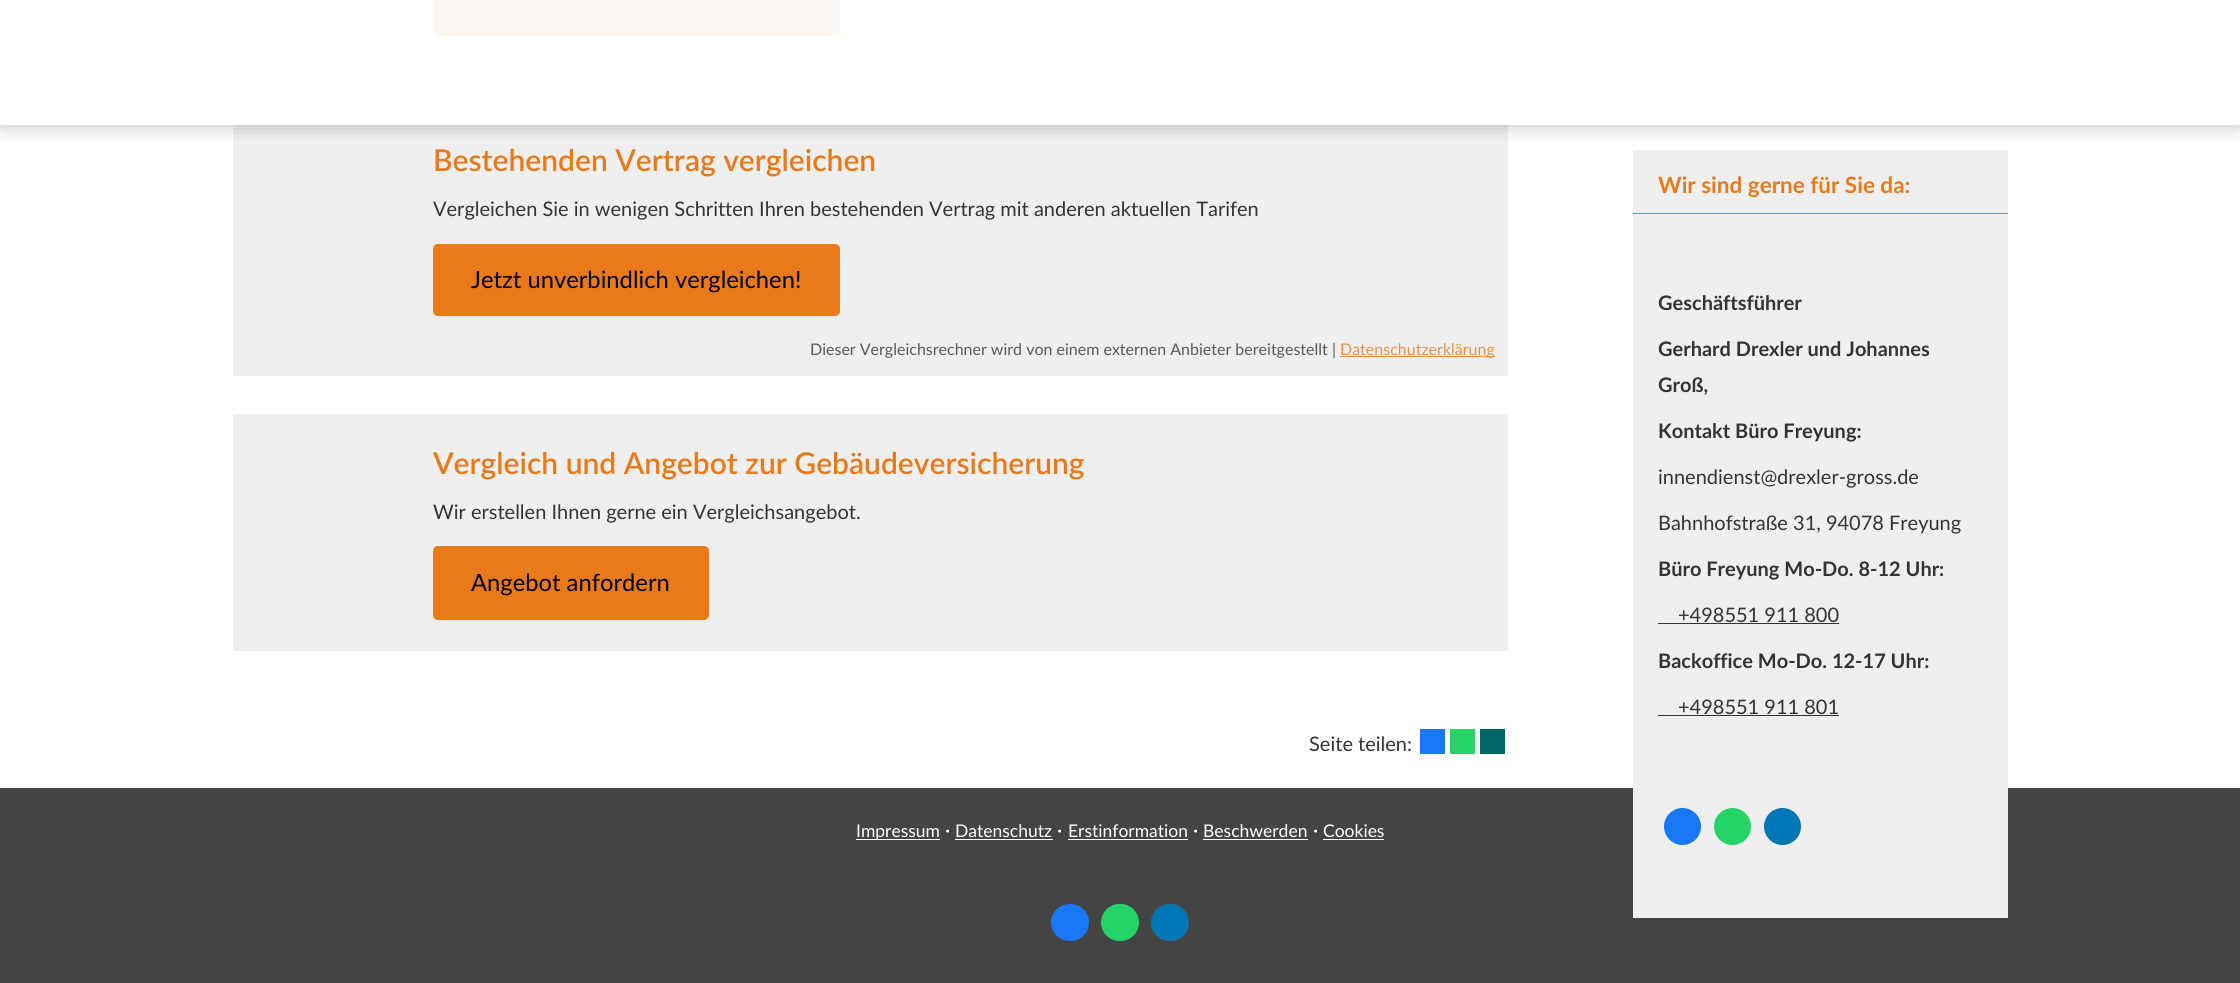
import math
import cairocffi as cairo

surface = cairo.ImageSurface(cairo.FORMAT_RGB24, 2240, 983)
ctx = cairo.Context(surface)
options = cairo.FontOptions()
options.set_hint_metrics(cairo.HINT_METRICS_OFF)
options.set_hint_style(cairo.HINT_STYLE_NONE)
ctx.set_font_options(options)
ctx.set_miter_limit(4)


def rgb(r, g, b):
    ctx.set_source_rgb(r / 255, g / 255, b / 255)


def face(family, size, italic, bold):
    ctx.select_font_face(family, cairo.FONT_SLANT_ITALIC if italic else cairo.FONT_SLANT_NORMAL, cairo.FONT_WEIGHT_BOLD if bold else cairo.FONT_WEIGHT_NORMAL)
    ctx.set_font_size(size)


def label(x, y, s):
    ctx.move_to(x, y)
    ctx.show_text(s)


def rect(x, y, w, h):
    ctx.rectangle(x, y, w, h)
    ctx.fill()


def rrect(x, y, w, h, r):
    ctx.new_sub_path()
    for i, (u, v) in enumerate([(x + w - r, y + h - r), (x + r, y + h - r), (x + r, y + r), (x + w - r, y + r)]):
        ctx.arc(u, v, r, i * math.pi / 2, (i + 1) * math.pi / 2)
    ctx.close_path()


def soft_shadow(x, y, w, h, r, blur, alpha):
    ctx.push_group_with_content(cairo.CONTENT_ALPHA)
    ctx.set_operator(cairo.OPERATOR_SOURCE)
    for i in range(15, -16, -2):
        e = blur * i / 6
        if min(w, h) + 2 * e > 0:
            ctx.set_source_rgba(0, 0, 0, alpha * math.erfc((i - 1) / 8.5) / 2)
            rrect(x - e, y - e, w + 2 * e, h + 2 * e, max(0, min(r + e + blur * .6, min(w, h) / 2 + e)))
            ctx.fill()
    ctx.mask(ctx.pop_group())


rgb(255, 255, 255)
ctx.paint()
rgb(254, 248, 244)
rrect(433.5, -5.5, 406, 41, 4.5)
ctx.fill_preserve()
ctx.set_line_width(1)
ctx.stroke()
rgb(239, 239, 239)
rect(233, 125, 1275, 251)
rgb(68, 68, 68)
rect(0, 788, 2240, 195)
rgb(239, 239, 239)
rect(1633, 150, 375, 768)
ctx.save()
ctx.rectangle(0, 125, 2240, 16)
ctx.clip()
rgb(90, 90, 90)
soft_shadow(0, 0, 2240, 125, 0, 10, 0.4)
ctx.restore()
face('Lato SemiBold', 30, 0, 0)
rgb(233, 122, 25)
label(433, 171, 'Bestehenden Vertrag vergleichen')
face('Lato', 20, 0, 0)
rgb(51, 51, 51)
label(433, 216, 'Vergleichen Sie in wenigen Schritten Ihren bestehenden Vertrag mit anderen aktuellen Tarifen')
rgb(233, 122, 25)
rrect(433.5, 244.5, 406, 71, 4.5)
ctx.fill_preserve()
ctx.stroke()
face('Lato', 23.75, 0, 0)
rgb(0, 0, 0)
label(471, 288, 'Jetzt unverbindlich vergleichen!')
face('Lato', 16, 0, 0)
rgb(89, 89, 89)
label(810, 355, 'Dieser Vergleichsrechner wird von einem externen Anbieter bereitgestellt |')
rgb(234, 145, 68)
rect(1340, 356, 155, 1)
label(1340, 355, 'Datenschutzerklärung')
rgb(233, 122, 25)
rect(1633, 213, 375, 1)
face('Lato', 22.5, 0, 1)
label(1658, 193, 'Wir sind gerne für Sie da:')
face('Lato', 20, 0, 1)
rgb(51, 51, 51)
label(1658, 310, 'Geschäftsführer')
label(1658, 356, 'Gerhard Drexler und Johannes')
label(1658, 392, 'Groß,')
label(1658, 438, 'Kontakt Büro Freyung:')
face('Lato', 20, 0, 0)
label(1658, 484, 'innendienst@drexler-gross.de')
label(1658, 530, 'Bahnhofstraße 31, 94078 Freyung')
face('Lato', 20, 0, 1)
label(1658, 576, 'Büro Freyung Mo-Do. 8-12 Uhr:')
face('Lato', 20, 0, 0)
label(1678, 622, '+498551 911 800')
rect(1658, 623, 181, 1)
face('Lato', 20, 0, 1)
label(1658, 668, 'Backoffice Mo-Do. 12-17 Uhr:')
face('Lato', 20, 0, 0)
label(1678, 714, '+498551 911 801')
rect(1658, 715, 181, 1)
rgb(25, 120, 243)
ctx.new_path()
ctx.arc(1682.5, 826.5, 18.5, 0, 2 * math.pi)
ctx.fill()
rgb(37, 211, 102)
ctx.arc(1732.5, 826.5, 18.5, 0, 2 * math.pi)
ctx.fill()
rgb(0, 119, 181)
ctx.arc(1782.5, 826.5, 18.5, 0, 2 * math.pi)
ctx.fill()
rgb(239, 239, 239)
rect(233, 414, 1275, 237)
face('Lato SemiBold', 30, 0, 0)
rgb(233, 122, 25)
label(433, 474, 'Vergleich und Angebot zur Gebäudeversicherung')
face('Lato', 20, 0, 0)
rgb(51, 51, 51)
label(433, 519, 'Wir erstellen Ihnen gerne ein Vergleichsangebot.')
rgb(233, 122, 25)
rrect(433.5, 546.5, 275, 73, 4.5)
ctx.fill_preserve()
ctx.stroke()
face('Lato', 23.75, 0, 0)
rgb(0, 0, 0)
label(471, 591, 'Angebot anfordern')
face('Lato', 20, 0, 0)
rgb(51, 51, 51)
label(1309, 751, 'Seite teilen:')
rgb(25, 120, 243)
rect(1420, 729, 25, 25)
rgb(37, 211, 102)
rect(1450, 729, 25, 25)
rgb(0, 101, 103)
rect(1480, 729, 25, 25)
rgb(255, 255, 255)
rect(856, 839, 84, 1)
face('Lato', 17.5, 0, 0)
label(856, 837, 'Impressum')
face('Lato', 20, 0, 0)
label(945, 837, '·')
face('Lato', 17.5, 0, 0)
label(955, 837, 'Datenschutz')
rect(955, 839, 98, 1)
face('Lato', 20, 0, 0)
label(1057, 837, '·')
face('Lato', 17.5, 0, 0)
label(1068, 837, 'Erstinformation')
rect(1068, 839, 120, 1)
face('Lato', 20, 0, 0)
label(1193, 837, '·')
face('Lato', 17.5, 0, 0)
label(1203, 837, 'Beschwerden')
rect(1203, 839, 105, 1)
face('Lato', 20, 0, 0)
label(1313, 837, '·')
face('Lato', 17.5, 0, 0)
label(1323, 837, 'Cookies')
rect(1323, 839, 61, 1)
rgb(25, 120, 243)
rrect(1051, 904, 38, 37, 18.5)
ctx.fill()
rgb(37, 211, 102)
rrect(1101, 904, 38, 37, 18.5)
ctx.fill()
rgb(0, 119, 181)
rrect(1151, 904, 38, 37, 18.5)
ctx.fill()
surface.write_to_png('render.png')
